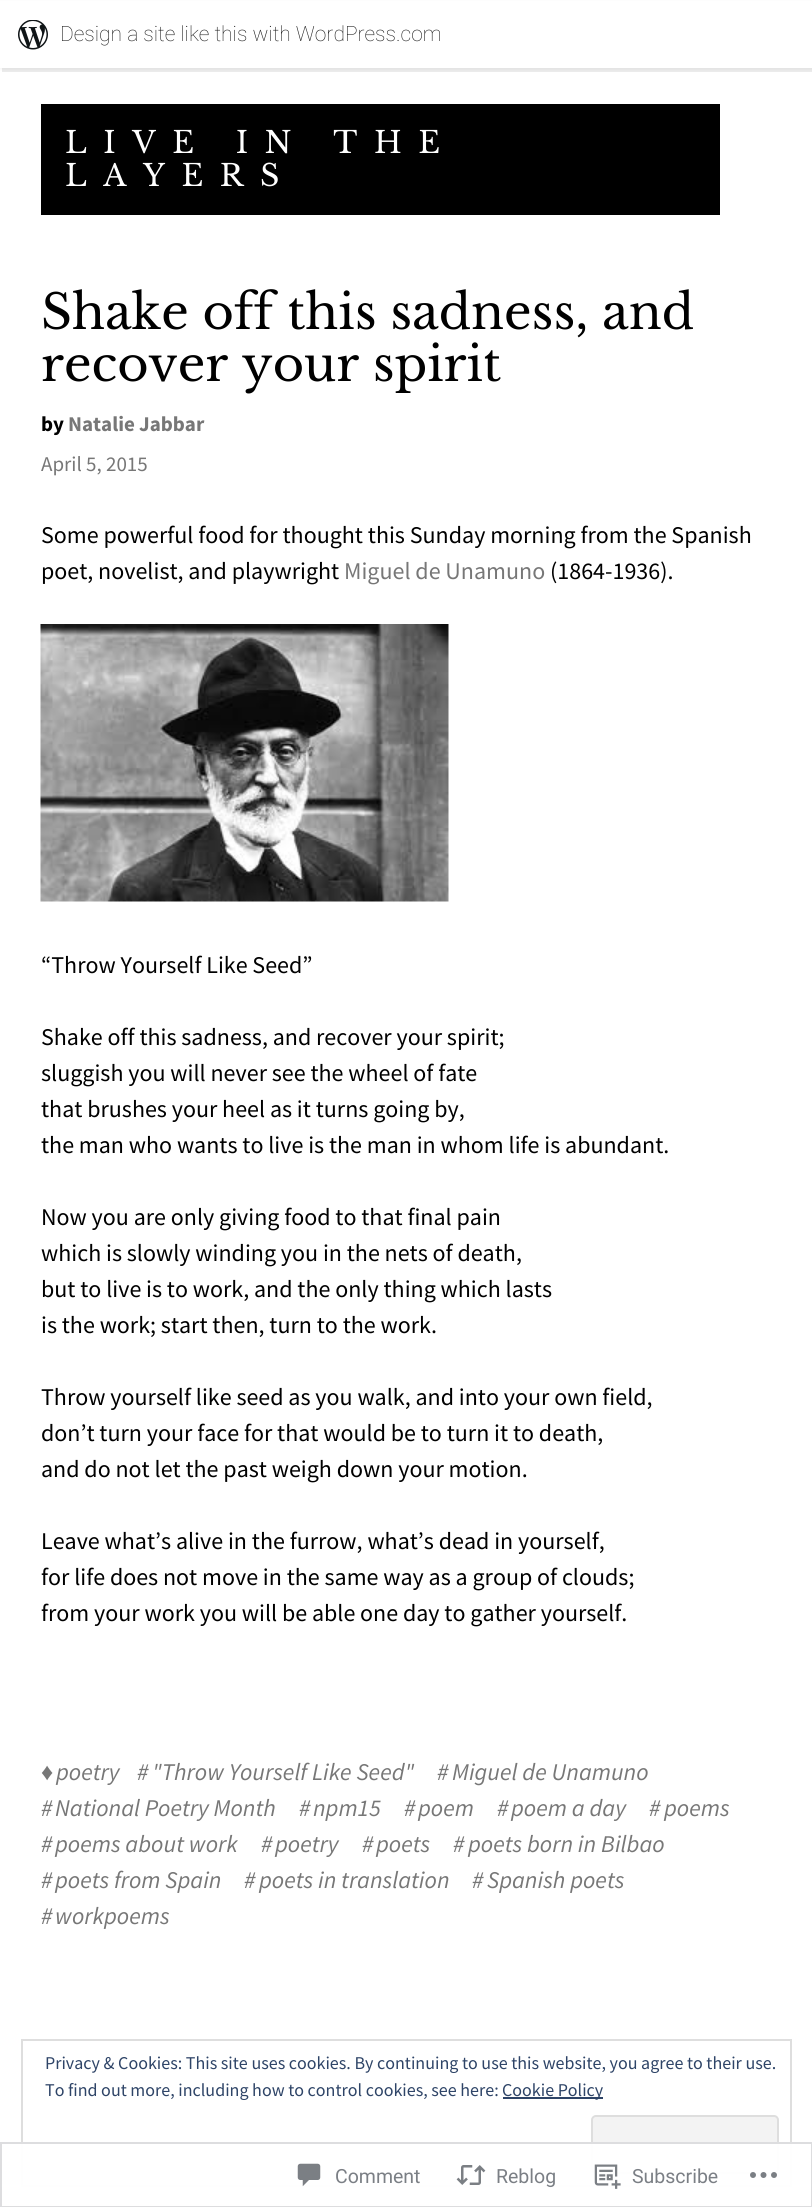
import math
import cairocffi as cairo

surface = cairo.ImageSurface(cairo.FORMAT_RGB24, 812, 2207)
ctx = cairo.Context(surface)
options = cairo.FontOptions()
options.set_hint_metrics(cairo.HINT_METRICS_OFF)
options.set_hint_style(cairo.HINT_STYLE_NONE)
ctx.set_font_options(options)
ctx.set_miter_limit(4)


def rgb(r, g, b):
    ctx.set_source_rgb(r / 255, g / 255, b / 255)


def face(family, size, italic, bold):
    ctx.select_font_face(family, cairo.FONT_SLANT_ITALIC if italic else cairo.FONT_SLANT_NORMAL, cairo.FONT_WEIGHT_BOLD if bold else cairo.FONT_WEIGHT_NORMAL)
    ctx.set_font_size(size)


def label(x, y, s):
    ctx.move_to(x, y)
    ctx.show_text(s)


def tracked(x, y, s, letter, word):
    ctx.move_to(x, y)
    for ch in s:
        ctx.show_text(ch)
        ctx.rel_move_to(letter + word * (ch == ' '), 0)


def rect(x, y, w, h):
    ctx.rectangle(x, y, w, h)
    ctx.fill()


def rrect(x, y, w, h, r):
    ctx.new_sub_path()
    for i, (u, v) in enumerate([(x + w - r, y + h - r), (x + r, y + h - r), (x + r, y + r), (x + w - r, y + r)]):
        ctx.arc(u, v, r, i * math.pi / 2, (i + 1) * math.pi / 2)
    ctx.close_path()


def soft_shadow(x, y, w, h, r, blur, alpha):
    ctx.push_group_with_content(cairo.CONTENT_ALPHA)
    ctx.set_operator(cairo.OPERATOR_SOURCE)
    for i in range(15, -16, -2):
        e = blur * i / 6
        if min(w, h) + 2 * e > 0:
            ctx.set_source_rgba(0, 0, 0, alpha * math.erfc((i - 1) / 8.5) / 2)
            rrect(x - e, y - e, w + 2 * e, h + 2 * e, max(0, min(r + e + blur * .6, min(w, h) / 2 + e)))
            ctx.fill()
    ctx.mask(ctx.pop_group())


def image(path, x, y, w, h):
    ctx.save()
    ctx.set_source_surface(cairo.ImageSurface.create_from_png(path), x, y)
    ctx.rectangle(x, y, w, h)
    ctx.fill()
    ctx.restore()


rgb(255, 255, 255)
ctx.paint()
rgb(0, 0, 0)
soft_shadow(0, 2, 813, 67, 0, 1.5, 0.05)
ctx.set_source_rgba(0, 0, 0, 0.08)
ctx.new_path()
ctx.move_to(2, 68)
ctx.line_to(2, 72)
ctx.line_to(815, 72)
ctx.line_to(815, 5)
ctx.line_to(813, 5)
ctx.line_to(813, 68)
ctx.close_path()
ctx.fill()
rgb(255, 255, 255)
rect(0, 1, 812, 67)
image('image0.png', 18, 20, 30, 30)
face('Roboto Thin', 21, 0, 0)
rgb(23, 23, 23)
label(60, 41, 'Design a site like this with WordPress.com')
rgb(0, 0, 0)
rect(41, 104, 679, 111)
face('Libre Baskerville', 30, 0, 0)
rgb(255, 255, 255)
tracked(65, 153, 'LIVE IN THE', 16.5, 0)
tracked(65, 186, 'LAYERS', 16.5, 0)
face('Libre Baskerville', 48, 0, 0)
rgb(0, 0, 0)
label(41, 329, 'Shake off this sadness, and')
label(41, 381, 'recover your spirit')
face('Source Sans Pro', 21, 0, 1)
label(41, 431, 'by')
rgb(119, 119, 119)
label(68, 431, 'Natalie Jabbar')
face('Source Sans Pro', 21, 0, 0)
label(41, 471, 'April 5, 2015')
face('Source Sans Pro', 24, 0, 0)
rgb(0, 0, 0)
label(41, 543, 'Some powerful food for thought this Sunday morning from the Spanish')
label(41, 579, 'poet, novelist, and playwright')
rgb(119, 119, 119)
label(344, 579, 'Miguel de Unamuno')
rgb(0, 0, 0)
label(550, 579, '(1864-1936).')
image('image1.png', 40, 624, 409, 278)
label(41, 973, '“Throw Yourself Like Seed”')
label(41, 1045, 'Shake off this sadness, and recover your spirit;')
label(41, 1081, 'sluggish you will never see the wheel of fate')
label(41, 1117, 'that brushes your heel as it turns going by,')
label(41, 1153, 'the man who wants to live is the man in whom life is abundant.')
label(41, 1225, 'Now you are only giving food to that final pain')
label(41, 1261, 'which is slowly winding you in the nets of death,')
label(41, 1297, 'but to live is to work, and the only thing which lasts')
label(41, 1333, 'is the work; start then, turn to the work.')
label(41, 1405, 'Throw yourself like seed as you walk, and into your own field,')
label(41, 1441, 'don’t turn your face for that would be to turn it to death,')
label(41, 1477, 'and do not let the past weigh down your motion.')
label(41, 1549, 'Leave what’s alive in the furrow, what’s dead in yourself,')
label(41, 1585, 'for life does not move in the same way as a group of clouds;')
label(41, 1621, 'from your work you will be able one day to gather yourself.')
face('Source Sans Pro', 24, 1, 0)
rgb(119, 119, 119)
label(137, 1780, '#')
label(152, 1780, '"Throw Yourself Like Seed"')
label(437, 1780, '#')
label(452, 1780, 'Miguel de Unamuno')
label(41, 1816, '#')
label(55, 1816, 'National Poetry Month')
label(299, 1816, '#')
label(313, 1816, 'npm15')
label(404, 1816, '#')
label(418, 1816, 'poem')
label(497, 1816, '#')
label(511, 1816, 'poem a day')
label(649, 1816, '#')
label(664, 1816, 'poems')
label(41, 1852, '#')
label(55, 1852, 'poems about work')
label(261, 1852, '#')
label(275, 1852, 'poetry')
label(362, 1852, '#')
label(376, 1852, 'poets')
label(453, 1852, '#')
label(468, 1852, 'poets born in Bilbao')
label(41, 1888, '#')
label(55, 1888, 'poets from Spain')
label(244, 1888, '#')
label(259, 1888, 'poets in translation')
label(472, 1888, '#')
label(487, 1888, 'Spanish poets')
label(41, 1924, '#')
label(55, 1924, 'workpoems')
face('Liberation Sans', 24, 1, 0)
label(41, 1780, '♦')
face('Source Sans Pro', 24, 1, 0)
label(56, 1780, 'poetry')
ctx.rectangle(22, 2040, 769, 146)
rgb(222, 222, 222)
ctx.stroke()
face('Source Sans Pro', 18, 0, 0)
rgb(46, 68, 103)
label(45, 2069, 'Privacy & Cookies: This site uses cookies. By continuing to use this website, you agree to their use.')
label(45, 2096, 'To find out more, including how to control cookies, see here:')
rect(503, 2097, 100, 2)
label(502, 2096, 'Cookie Policy')
rgb(243, 243, 243)
rrect(592, 2116, 186, 57, 4)
ctx.fill_preserve()
rgb(222, 222, 222)
ctx.stroke()
ctx.set_source_rgba(1, 1, 1, 0.98)
rect(21, 2142, 771, 45)
ctx.rectangle(1, 2143, 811, 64)
ctx.set_source_rgba(0.863, 0.863, 0.871, 0.98)
ctx.stroke()
image('image2.png', 297, 2163, 24, 24)
face('Roboto', 19.5, 0, 0)
rgb(123, 127, 133)
label(335, 2183, 'Comment')
image('image3.png', 456, 2165, 30, 20)
label(496, 2183, 'Reblog')
image('image4.png', 594, 2164, 27, 25)
label(632, 2183, 'Subscribe')
image('image5.png', 750, 2172, 27, 6)
surface.write_to_png('render.png')
